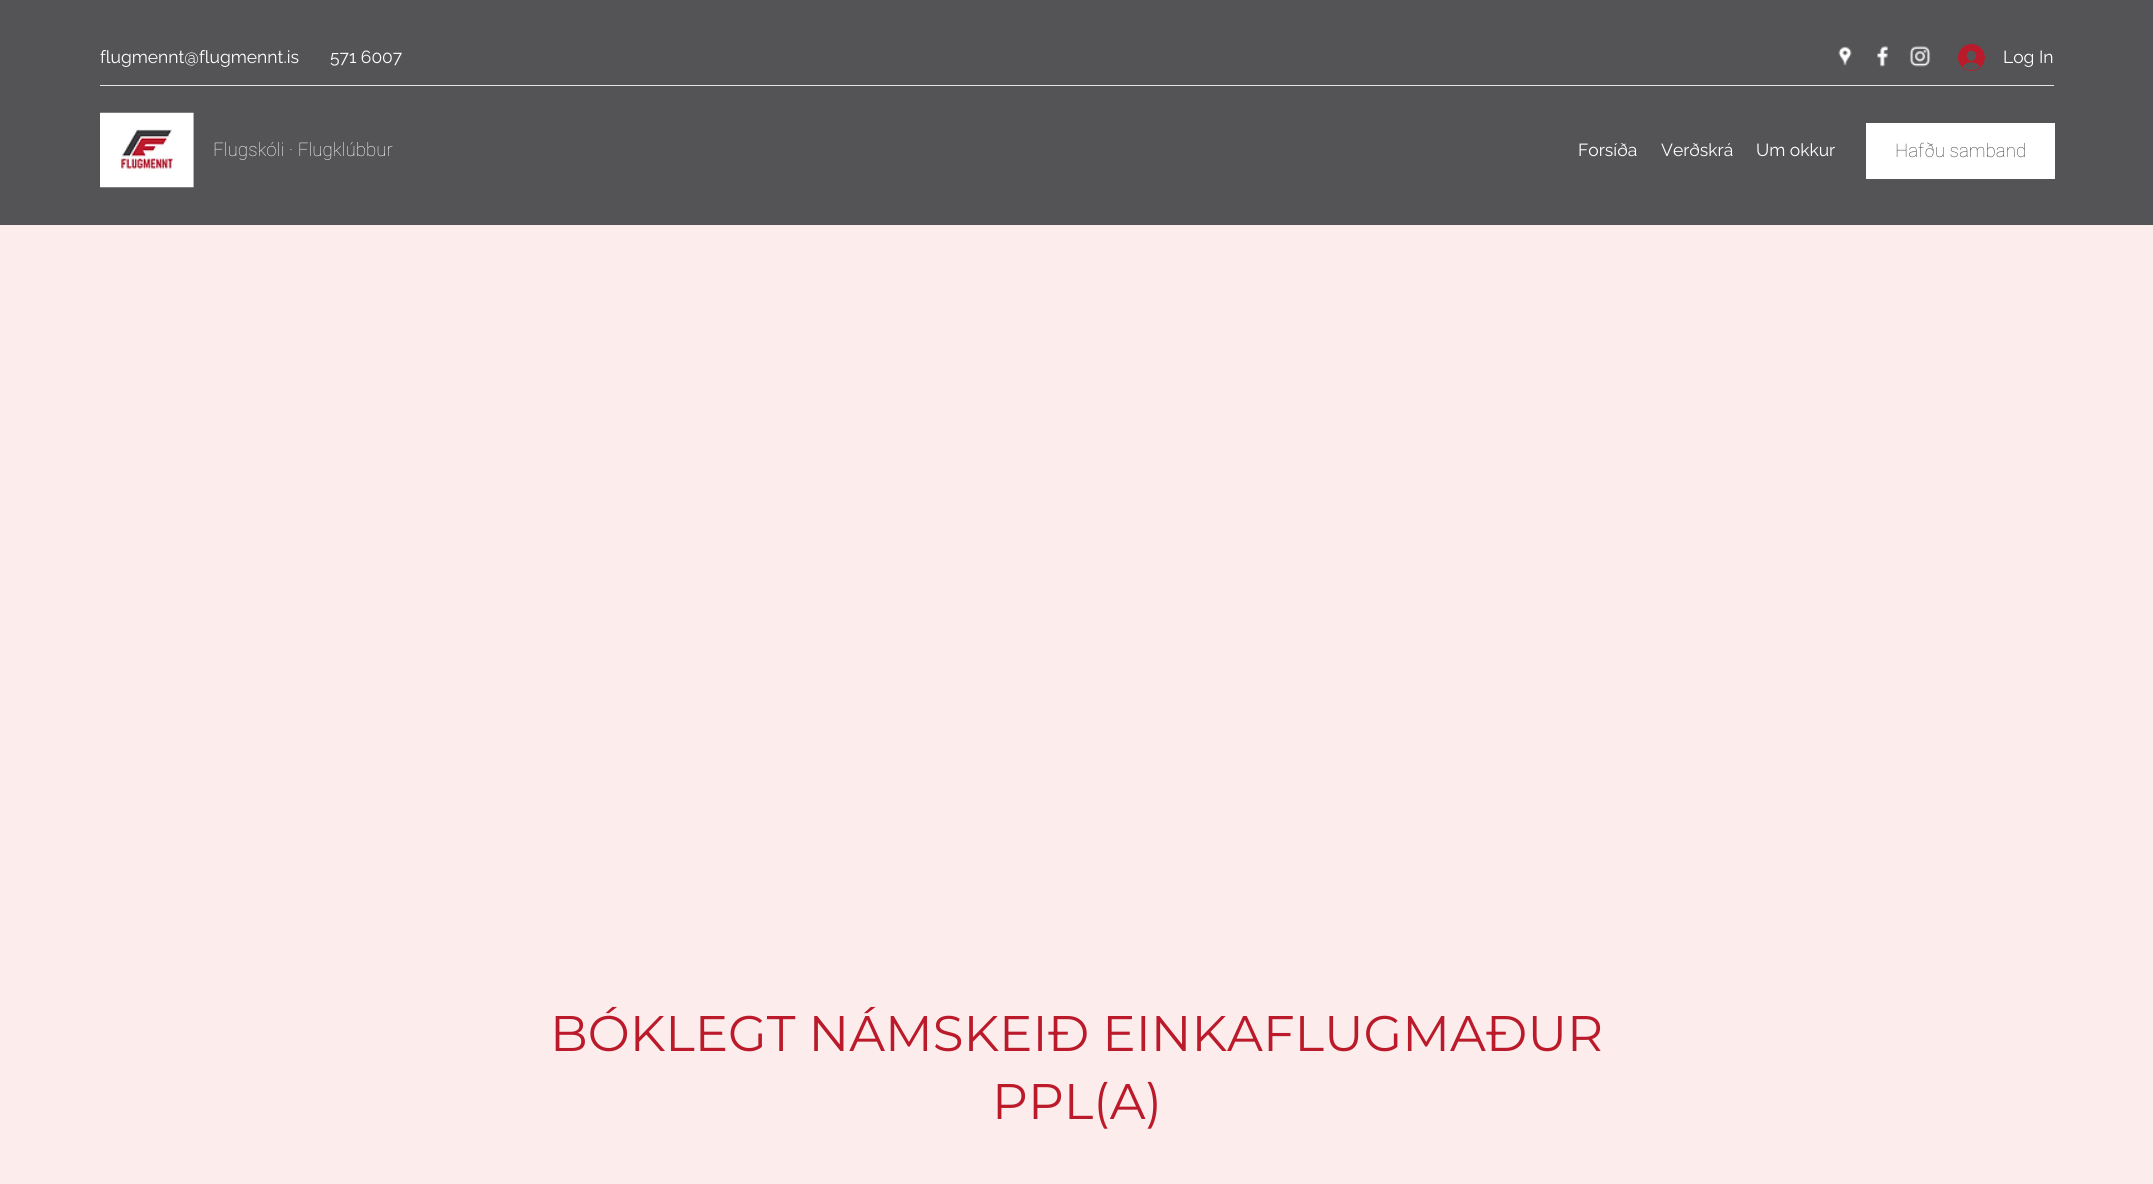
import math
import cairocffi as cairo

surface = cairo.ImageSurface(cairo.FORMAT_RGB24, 2153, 1184)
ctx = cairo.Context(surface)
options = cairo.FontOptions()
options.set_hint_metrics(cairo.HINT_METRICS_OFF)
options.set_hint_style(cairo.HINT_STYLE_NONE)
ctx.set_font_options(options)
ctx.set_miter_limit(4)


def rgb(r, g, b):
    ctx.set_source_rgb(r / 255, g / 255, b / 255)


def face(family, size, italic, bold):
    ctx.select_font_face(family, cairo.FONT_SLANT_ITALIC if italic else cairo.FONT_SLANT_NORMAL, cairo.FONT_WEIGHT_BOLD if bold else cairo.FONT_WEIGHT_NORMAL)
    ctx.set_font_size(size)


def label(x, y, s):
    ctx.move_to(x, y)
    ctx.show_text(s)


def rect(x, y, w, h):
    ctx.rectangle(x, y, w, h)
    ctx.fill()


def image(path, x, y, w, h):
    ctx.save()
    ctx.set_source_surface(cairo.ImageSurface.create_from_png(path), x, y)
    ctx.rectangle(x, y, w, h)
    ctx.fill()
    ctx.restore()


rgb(252, 236, 236)
ctx.paint()
rgb(84, 84, 86)
rect(0, 0, 2153, 225)
face('Raleway', 17.5, 0, 0)
rgb(255, 255, 255)
label(100, 63, 'flugmennt@flugmennt.is')
label(330, 63, '571 6007')
image('image0.png', 1838, 46, 14, 20)
image('image1.png', 1877, 46, 12, 21)
image('image2.png', 1909, 46, 22, 21)
image('image3.png', 1958, 44, 27, 27)
label(2003, 63, 'Log In')
rgb(229, 229, 230)
rect(100, 85, 1954, 1)
image('image4.png', 100, 112, 94, 76)
face('Roboto Thin', 18.75, 0, 0)
rgb(255, 255, 255)
label(213, 156, 'Flugskóli · Flugklúbbur')
face('Raleway', 17.5, 0, 0)
label(1578, 156, 'Forsíða')
label(1661, 156, 'Verðskrá')
label(1756, 156, 'Um okkur')
rect(1866, 123, 189, 56)
face('Roboto Thin', 18.75, 0, 0)
rgb(59, 59, 60)
label(1895, 157, 'Hafðu samband')
face('Montserrat', 50, 0, 0)
rgb(187, 26, 42)
label(550, 1051, 'BÓKLEGT NÁMSKEIÐ EINKAFLUGMAÐUR')
label(992, 1119, 'PPL(A)')
surface.write_to_png('render.png')
